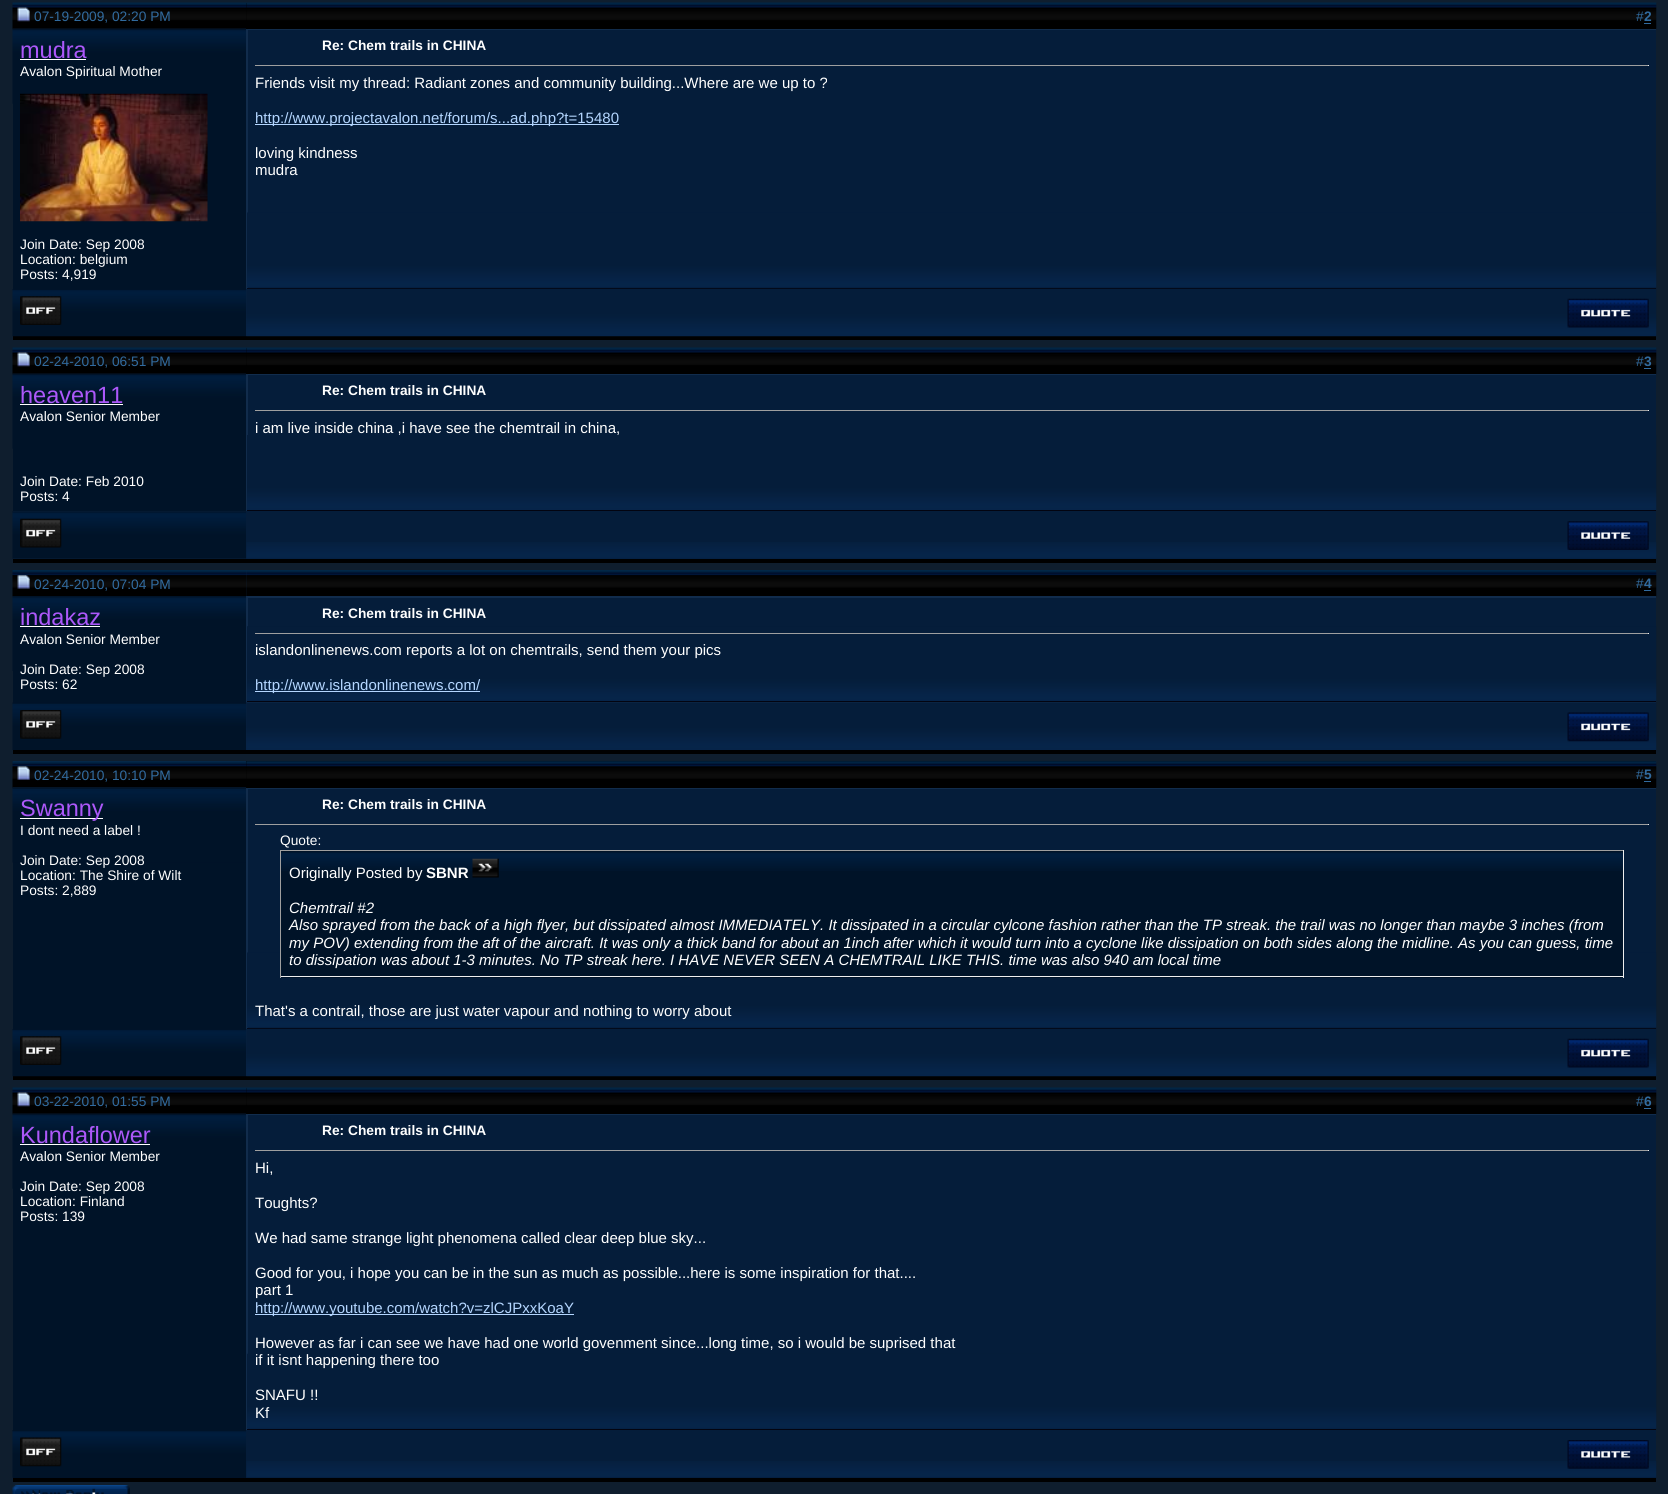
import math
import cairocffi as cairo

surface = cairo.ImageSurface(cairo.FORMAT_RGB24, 1668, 1494)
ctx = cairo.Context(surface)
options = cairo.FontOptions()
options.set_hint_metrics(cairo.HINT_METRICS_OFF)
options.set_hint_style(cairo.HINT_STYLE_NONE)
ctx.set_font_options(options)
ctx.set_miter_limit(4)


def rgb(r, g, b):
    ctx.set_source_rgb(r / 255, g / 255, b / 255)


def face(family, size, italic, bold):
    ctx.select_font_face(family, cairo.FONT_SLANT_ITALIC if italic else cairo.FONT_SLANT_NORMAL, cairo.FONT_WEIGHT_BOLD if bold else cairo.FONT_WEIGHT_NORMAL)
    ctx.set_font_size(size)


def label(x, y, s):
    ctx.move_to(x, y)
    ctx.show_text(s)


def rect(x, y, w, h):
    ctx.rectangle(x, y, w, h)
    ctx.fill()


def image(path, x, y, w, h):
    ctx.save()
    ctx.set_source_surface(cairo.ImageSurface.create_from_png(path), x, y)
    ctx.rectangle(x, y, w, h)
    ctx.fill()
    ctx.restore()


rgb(15, 30, 46)
ctx.paint()
rgb(17, 44, 76)
rect(13, 28, 235, 308)
rgb(0, 0, 0)
rect(13, 336, 1643, 4)
image('image0.png', 12, 2, 235, 27)
image('image1.png', 17, 7, 13, 15)
face('Liberation Sans', 13.75, 0, 0)
rgb(49, 107, 159)
label(34, 21, '07-19-2009, 02:20 PM')
rgb(0, 0, 0)
rect(246, 3, 1410, 26)
image('image2.png', 246, 2, 1411, 27)
rgb(49, 107, 159)
label(1636, 21, '#')
face('Liberation Sans', 13.75, 0, 1)
label(1644, 21, '2')
rect(1644, 23, 7, 1)
rgb(0, 19, 40)
rect(13, 103, 233, 186)
image('image3.png', 12, 28, 235, 76)
face('Liberation Sans', 23.5, 0, 0)
rgb(172, 88, 250)
label(20, 58, 'mudra')
rgb(255, 255, 255)
rect(20, 59, 66, 1)
face('Liberation Sans', 13.75, 0, 0)
label(20, 76, 'Avalon Spiritual Mother')
image('image4.png', 20, 93, 188, 129)
label(20, 249, 'Join Date: Sep 2008')
label(20, 264, 'Location: belgium')
label(20, 279, 'Posts: 4,919')
rgb(5, 29, 58)
rect(248, 30, 1408, 258)
image('image5.png', 247, 212, 1410, 76)
rgb(17, 44, 76)
rect(246, 29, 1410, 1)
rgb(3, 4, 16)
rect(246, 288, 1410, 1)
rgb(17, 44, 76)
rect(246, 29, 1, 260)
face('Liberation Sans', 13.75, 0, 1)
rgb(255, 255, 255)
label(322, 50, 'Re: Chem trails in CHINA')
rgb(159, 159, 159)
rect(255, 65, 1394, 1)
rgb(238, 238, 238)
rect(1648, 65, 1, 1)
face('Liberation Sans', 15, 0, 0)
rgb(255, 255, 255)
label(255, 88, 'Friends visit my thread: Radiant zones and community building...Where are we up to ?')
rgb(180, 214, 255)
rect(255, 124, 364, 1)
label(255, 123, 'http://www.projectavalon.net/forum/s...ad.php?t=15480')
rgb(255, 255, 255)
label(255, 158, 'loving kindness')
label(255, 175, 'mudra')
image('image6.png', 12, 289, 235, 48)
image('image7.png', 20, 296, 42, 29)
image('image8.png', 246, 288, 1411, 49)
image('image9.png', 1567, 298, 82, 30)
rgb(17, 44, 76)
rect(13, 373, 235, 186)
rgb(0, 0, 0)
rect(13, 559, 1643, 4)
image('image0.png', 12, 347, 235, 27)
image('image1.png', 17, 352, 13, 15)
face('Liberation Sans', 13.75, 0, 0)
rgb(49, 107, 159)
label(34, 366, '02-24-2010, 06:51 PM')
rgb(0, 0, 0)
rect(246, 348, 1410, 26)
image('image2.png', 246, 347, 1411, 27)
rgb(49, 107, 159)
label(1636, 366, '#')
face('Liberation Sans', 13.75, 0, 1)
label(1644, 366, '3')
rect(1644, 368, 7, 1)
rgb(0, 19, 40)
rect(13, 448, 233, 63)
image('image3.png', 12, 373, 235, 76)
face('Liberation Sans', 23.5, 0, 0)
rgb(172, 88, 250)
label(20, 403, 'heaven11')
rgb(255, 255, 255)
rect(20, 404, 103, 1)
face('Liberation Sans', 13.75, 0, 0)
label(20, 421, 'Avalon Senior Member')
label(20, 486, 'Join Date: Feb 2010')
label(20, 501, 'Posts: 4')
rgb(5, 29, 58)
rect(248, 375, 1408, 60)
image('image10.png', 247, 435, 1410, 75)
rgb(17, 44, 76)
rect(246, 374, 1410, 1)
rgb(3, 4, 16)
rect(246, 510, 1410, 1)
rgb(17, 44, 76)
rect(246, 374, 1, 137)
face('Liberation Sans', 13.75, 0, 1)
rgb(255, 255, 255)
label(322, 395, 'Re: Chem trails in CHINA')
rgb(159, 159, 159)
rect(255, 410, 1394, 1)
rgb(238, 238, 238)
rect(1648, 410, 1, 1)
face('Liberation Sans', 15, 0, 0)
rgb(255, 255, 255)
label(255, 433, 'i am live inside china ,i have see the chemtrail in china,')
image('image11.png', 12, 511, 234, 48)
image('image12.png', 20, 518, 42, 30)
rgb(5, 29, 58)
rect(246, 511, 1410, 48)
image('image13.png', 246, 542, 1411, 17)
image('image14.png', 1567, 521, 82, 29)
rgb(17, 44, 76)
rect(246, 570, 1410, 180)
rgb(0, 0, 0)
rect(13, 750, 1643, 4)
image('image15.png', 12, 570, 235, 27)
image('image16.png', 17, 575, 13, 14)
face('Liberation Sans', 13.75, 0, 0)
rgb(49, 107, 159)
label(34, 589, '02-24-2010, 07:04 PM')
image('image17.png', 246, 570, 1411, 27)
label(1636, 588, '#')
face('Liberation Sans', 13.75, 0, 1)
label(1644, 588, '4')
rect(1644, 590, 7, 1)
rgb(0, 19, 40)
rect(13, 596, 233, 107)
image('image18.png', 12, 596, 234, 75)
face('Liberation Sans', 23.5, 0, 0)
rgb(172, 88, 250)
label(20, 625, 'indakaz')
rgb(255, 255, 255)
rect(20, 626, 80, 1)
face('Liberation Sans', 13.75, 0, 0)
label(20, 644, 'Avalon Senior Member')
label(20, 674, 'Join Date: Sep 2008')
label(20, 689, 'Posts: 62')
rgb(5, 29, 58)
rect(248, 598, 1408, 29)
image('image19.png', 247, 626, 1410, 75)
rgb(17, 44, 76)
rect(246, 596, 1410, 1)
rgb(3, 4, 16)
rect(246, 701, 1410, 1)
rgb(17, 44, 76)
rect(246, 701, 1, 2)
face('Liberation Sans', 13.75, 0, 1)
rgb(255, 255, 255)
label(322, 618, 'Re: Chem trails in CHINA')
rgb(159, 159, 159)
rect(255, 633, 1394, 1)
rgb(238, 238, 238)
rect(1648, 633, 1, 1)
face('Liberation Sans', 15, 0, 0)
rgb(255, 255, 255)
label(255, 655, 'islandonlinenews.com reports a lot on chemtrails, send them your pics')
rgb(180, 214, 255)
rect(255, 691, 225, 1)
label(255, 690, 'http://www.islandonlinenews.com/')
image('image20.png', 12, 702, 235, 48)
image('image21.png', 20, 710, 42, 29)
image('image22.png', 246, 702, 1411, 48)
image('image23.png', 1567, 712, 82, 30)
rgb(17, 44, 76)
rect(13, 761, 235, 315)
rgb(0, 0, 0)
rect(13, 1076, 1643, 4)
image('image24.png', 12, 761, 234, 27)
image('image25.png', 17, 766, 13, 14)
face('Liberation Sans', 13.75, 0, 0)
rgb(49, 107, 159)
label(34, 780, '02-24-2010, 10:10 PM')
rgb(0, 0, 0)
rect(246, 761, 1410, 27)
image('image26.png', 246, 761, 1411, 27)
rgb(49, 107, 159)
label(1636, 779, '#')
face('Liberation Sans', 13.75, 0, 1)
label(1644, 779, '5')
rect(1644, 781, 7, 1)
rgb(0, 19, 40)
rect(13, 862, 233, 167)
image('image27.png', 12, 787, 235, 76)
rgb(255, 255, 255)
rect(20, 818, 83, 1)
face('Liberation Sans', 23.5, 0, 0)
rgb(172, 88, 250)
label(20, 816, 'Swanny')
face('Liberation Sans', 13.75, 0, 0)
rgb(255, 255, 255)
label(20, 835, 'I dont need a label !')
label(20, 865, 'Join Date: Sep 2008')
label(20, 880, 'Location: The Shire of Wilt')
label(20, 895, 'Posts: 2,889')
rgb(5, 29, 58)
rect(248, 789, 1408, 239)
image('image5.png', 247, 952, 1410, 76)
rgb(17, 44, 76)
rect(246, 788, 1410, 1)
rgb(3, 4, 16)
rect(246, 1028, 1410, 1)
rgb(17, 44, 76)
rect(246, 788, 1, 241)
face('Liberation Sans', 13.75, 0, 1)
rgb(255, 255, 255)
label(322, 809, 'Re: Chem trails in CHINA')
rgb(159, 159, 159)
rect(255, 824, 1394, 1)
rgb(238, 238, 238)
rect(1648, 824, 1, 1)
face('Liberation Sans', 13.75, 0, 0)
rgb(255, 255, 255)
label(280, 845, 'Quote:')
rgb(0, 19, 40)
rect(281, 851, 1342, 127)
image('image28.png', 281, 852, 1342, 19)
rgb(159, 159, 159)
rect(280, 850, 1344, 1)
rgb(238, 238, 238)
rect(1623, 850, 1, 128)
rect(280, 976, 1344, 1)
rgb(159, 159, 159)
rect(280, 850, 1, 128)
face('Liberation Sans', 15, 0, 0)
rgb(255, 255, 255)
label(289, 878, 'Originally Posted by')
face('Liberation Sans', 15, 0, 1)
label(426, 878, 'SBNR')
image('image29.png', 472, 858, 27, 20)
face('Liberation Sans', 15, 1, 0)
label(289, 913, 'Chemtrail #2')
label(289, 930, 'Also sprayed from the back of a high flyer, but dissipated almost IMMEDIATELY. It dissipated in a circular cylcone fashion rather than the TP streak. the trail was no longer than maybe 3 inches (from')
label(289, 948, 'my POV) extending from the aft of the aircraft. It was only a thick band for about an 1inch after which it would turn into a cyclone like dissipation on both sides along the midline. As you can guess, time')
label(289, 965, 'to dissipation was about 1-3 minutes. No TP streak here. I HAVE NEVER SEEN A CHEMTRAIL LIKE THIS. time was also 940 am local time')
face('Liberation Sans', 15, 0, 0)
label(255, 1016, 'That\'s a contrail, those are just water vapour and nothing to worry about')
image('image6.png', 12, 1029, 235, 48)
image('image7.png', 20, 1036, 42, 29)
image('image8.png', 246, 1028, 1411, 49)
image('image9.png', 1567, 1038, 82, 30)
rgb(17, 44, 76)
rect(13, 1113, 235, 316)
rgb(0, 0, 0)
rect(13, 1478, 1643, 4)
image('image0.png', 12, 1087, 235, 27)
image('image1.png', 17, 1092, 13, 15)
face('Liberation Sans', 13.75, 0, 0)
rgb(49, 107, 159)
label(34, 1106, '03-22-2010, 01:55 PM')
rgb(0, 0, 0)
rect(246, 1088, 1410, 26)
image('image2.png', 246, 1087, 1411, 27)
rgb(49, 107, 159)
label(1636, 1106, '#')
face('Liberation Sans', 13.75, 0, 1)
label(1644, 1106, '6')
rect(1644, 1108, 7, 1)
rgb(0, 19, 40)
rect(13, 1188, 233, 242)
image('image3.png', 12, 1113, 235, 76)
face('Liberation Sans', 23.5, 0, 0)
rgb(172, 88, 250)
label(20, 1143, 'Kundaflower')
rgb(255, 255, 255)
rect(20, 1144, 130, 1)
face('Liberation Sans', 13.75, 0, 0)
label(20, 1161, 'Avalon Senior Member')
label(20, 1191, 'Join Date: Sep 2008')
label(20, 1206, 'Location: Finland')
label(20, 1221, 'Posts: 139')
rgb(5, 29, 58)
rect(248, 1115, 1408, 314)
image('image30.png', 247, 1353, 1410, 76)
rgb(17, 44, 76)
rect(246, 1114, 1410, 1)
rgb(3, 4, 16)
rect(246, 1429, 1410, 1)
rgb(17, 44, 76)
rect(246, 1114, 1, 316)
face('Liberation Sans', 13.75, 0, 1)
rgb(255, 255, 255)
label(322, 1135, 'Re: Chem trails in CHINA')
rgb(159, 159, 159)
rect(255, 1150, 1394, 1)
rgb(238, 238, 238)
rect(1648, 1150, 1, 1)
face('Liberation Sans', 15, 0, 0)
rgb(255, 255, 255)
label(255, 1173, 'Hi,')
label(255, 1208, 'Toughts?')
label(255, 1243, 'We had same strange light phenomena called clear deep blue sky...')
label(255, 1278, 'Good for you, i hope you can be in the sun as much as possible...here is some inspiration for that....')
label(255, 1295, 'part 1')
rgb(180, 214, 255)
rect(255, 1314, 319, 1)
label(255, 1313, 'http://www.youtube.com/watch?v=zlCJPxxKoaY')
rgb(255, 255, 255)
label(255, 1348, 'However as far i can see we have had one world govenment since...long time, so i would be suprised that')
label(255, 1365, 'if it isnt happening there too')
label(255, 1400, 'SNAFU !!')
label(255, 1418, 'Kf')
rgb(0, 19, 40)
rect(13, 1477, 233, 1)
image('image31.png', 12, 1430, 234, 48)
image('image32.png', 20, 1437, 42, 30)
rgb(5, 29, 58)
rect(246, 1430, 1410, 48)
image('image33.png', 246, 1461, 1411, 17)
image('image34.png', 1567, 1440, 82, 29)
image('image35.png', 12, 1485, 118, 9)
surface.write_to_png('render.png')
